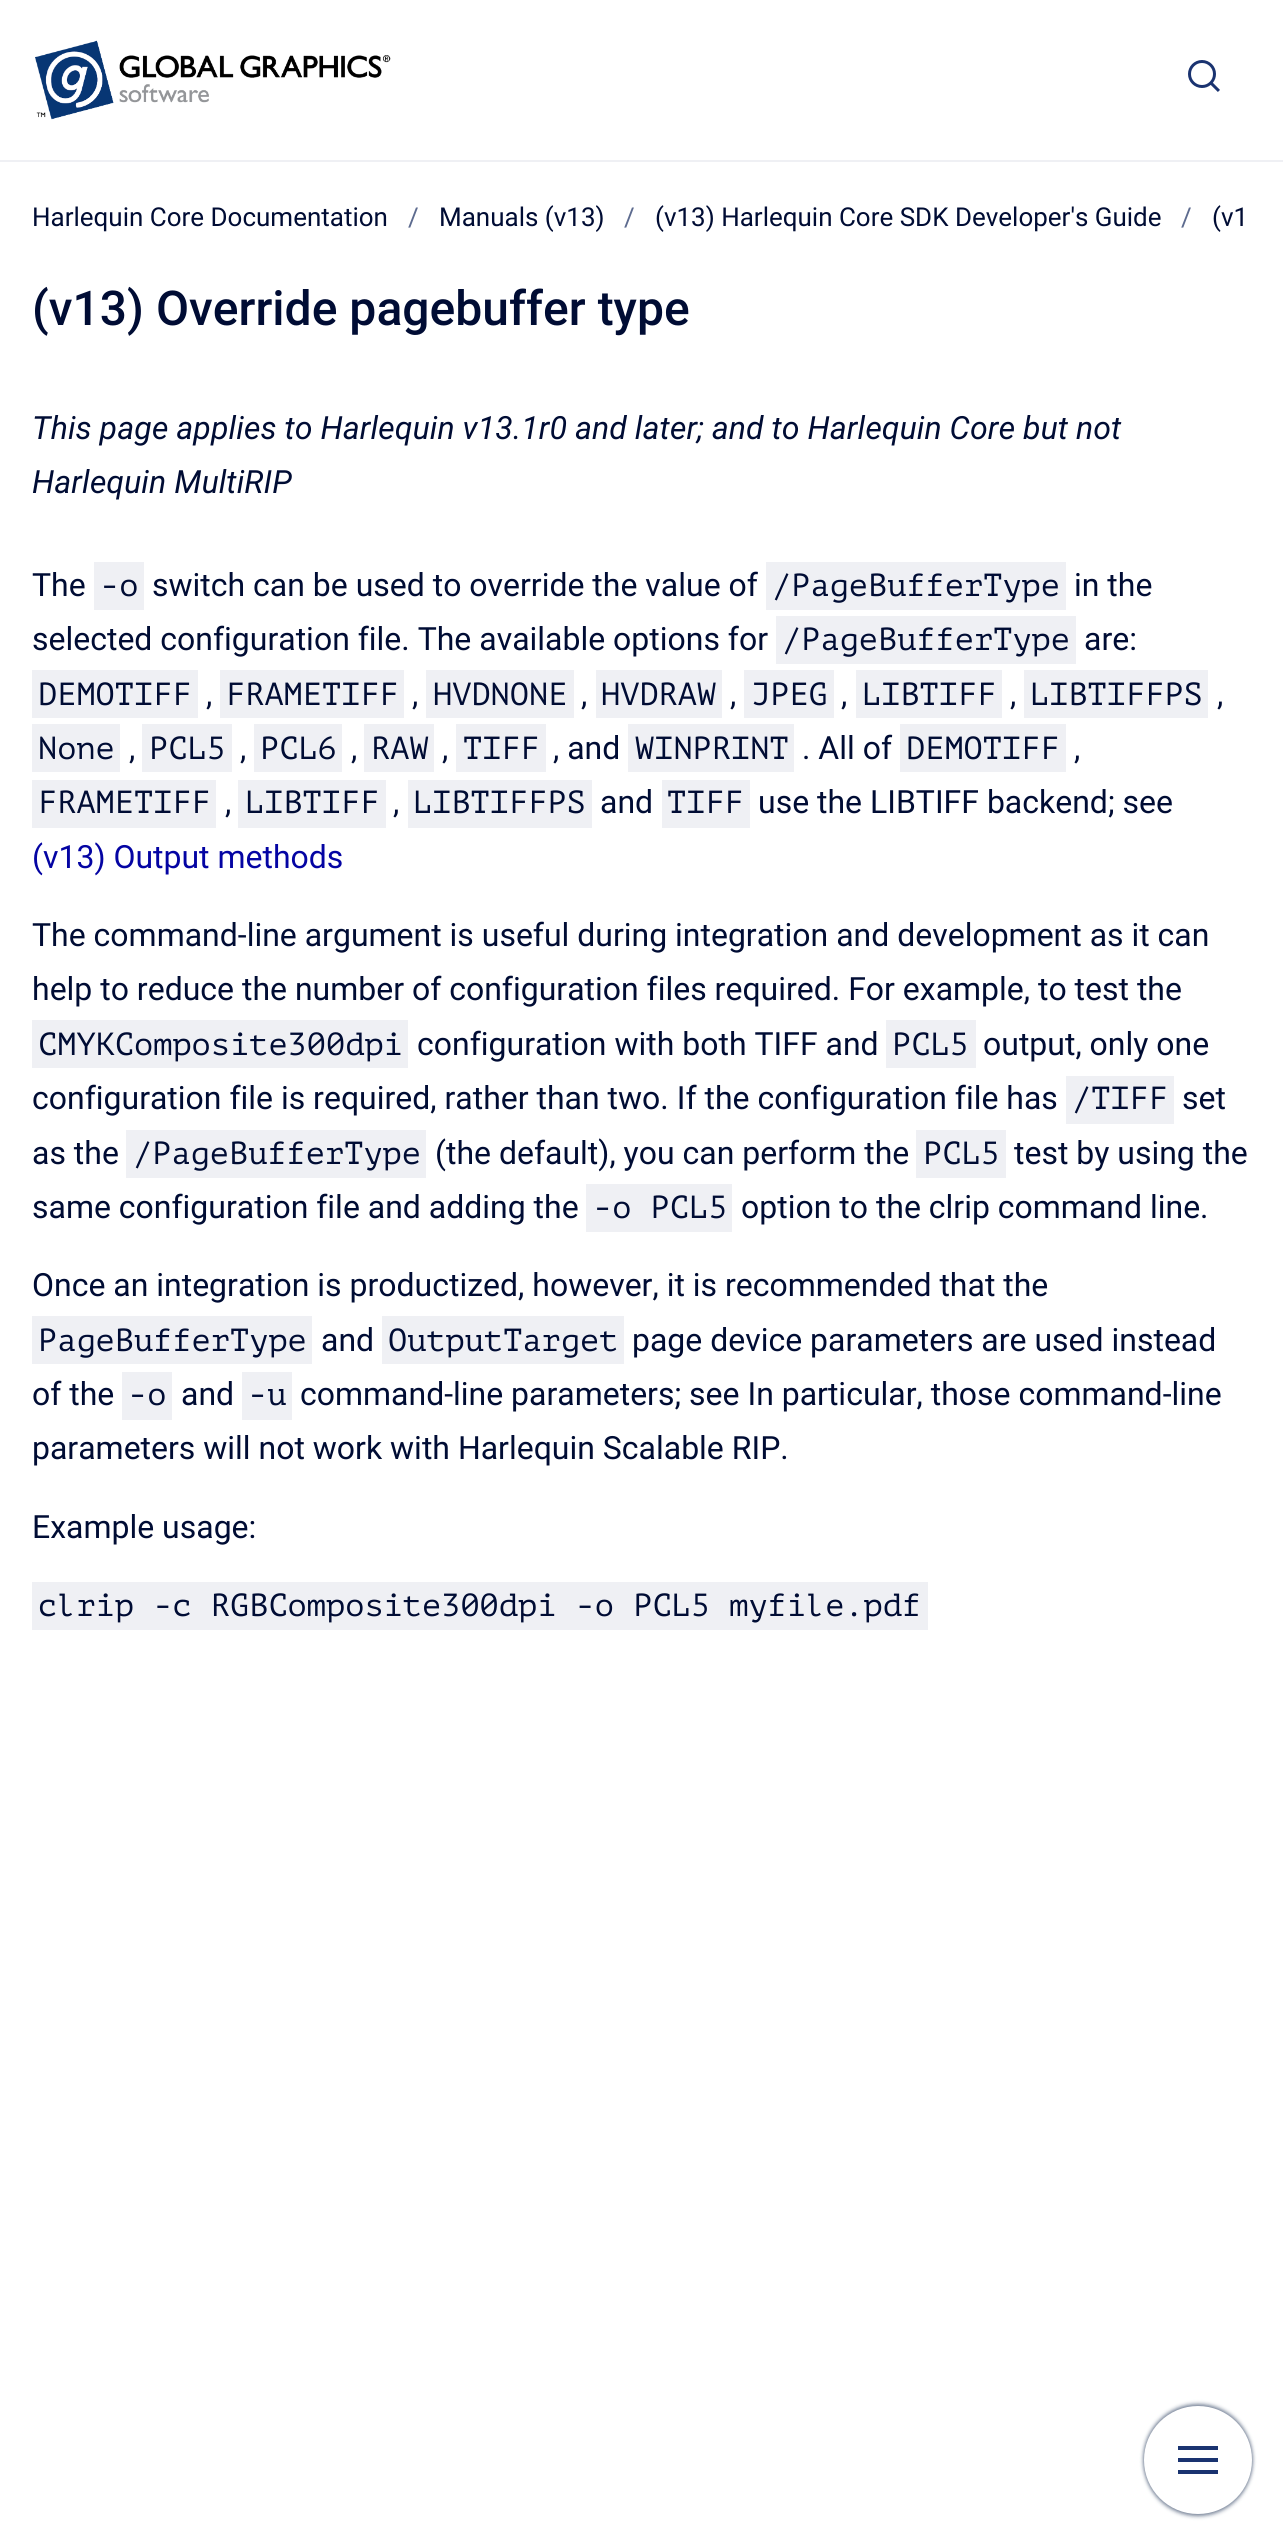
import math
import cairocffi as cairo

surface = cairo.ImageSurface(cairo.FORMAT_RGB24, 1283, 2546)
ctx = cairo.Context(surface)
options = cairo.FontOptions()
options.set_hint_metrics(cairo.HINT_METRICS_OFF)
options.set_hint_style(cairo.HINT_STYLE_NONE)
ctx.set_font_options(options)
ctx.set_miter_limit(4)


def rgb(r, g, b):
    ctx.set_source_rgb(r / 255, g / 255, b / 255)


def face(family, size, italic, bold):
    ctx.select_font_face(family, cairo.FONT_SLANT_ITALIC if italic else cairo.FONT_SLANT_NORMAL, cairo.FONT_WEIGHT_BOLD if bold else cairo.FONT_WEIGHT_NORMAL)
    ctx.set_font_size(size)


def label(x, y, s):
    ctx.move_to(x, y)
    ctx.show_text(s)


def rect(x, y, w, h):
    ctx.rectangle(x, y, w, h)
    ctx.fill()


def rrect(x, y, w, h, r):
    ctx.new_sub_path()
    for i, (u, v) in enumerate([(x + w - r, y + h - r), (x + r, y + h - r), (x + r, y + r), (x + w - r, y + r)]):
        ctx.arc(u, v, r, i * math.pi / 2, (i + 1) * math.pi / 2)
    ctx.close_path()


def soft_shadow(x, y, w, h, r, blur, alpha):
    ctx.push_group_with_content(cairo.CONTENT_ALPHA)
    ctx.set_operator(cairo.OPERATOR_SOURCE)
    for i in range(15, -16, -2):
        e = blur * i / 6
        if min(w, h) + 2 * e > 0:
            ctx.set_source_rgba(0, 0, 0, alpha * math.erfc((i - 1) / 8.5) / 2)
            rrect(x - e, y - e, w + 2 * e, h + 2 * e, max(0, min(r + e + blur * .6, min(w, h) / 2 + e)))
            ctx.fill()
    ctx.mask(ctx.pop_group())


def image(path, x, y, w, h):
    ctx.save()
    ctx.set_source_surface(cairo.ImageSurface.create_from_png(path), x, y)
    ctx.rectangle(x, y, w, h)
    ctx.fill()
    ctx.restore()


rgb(255, 255, 255)
ctx.paint()
rgb(239, 240, 244)
rect(0, 160, 1283, 2)
image('image0.png', 35, 40, 356, 80)
image('image1.png', 1188, 60, 32, 32)
face('Roboto', 26, 0, 0)
rgb(0, 12, 52)
label(32, 226, 'Harlequin Core Documentation')
rgb(93, 107, 143)
label(408, 226, '/')
rgb(0, 12, 52)
label(439, 226, 'Manuals (v13)')
rgb(93, 107, 143)
label(624, 226, '/')
rgb(0, 12, 52)
label(655, 226, '(v13) Harlequin Core SDK Developer\'s Guide')
rgb(93, 107, 143)
label(1181, 226, '/')
rgb(0, 12, 52)
label(1212, 226, '(v1')
face('Roboto Medium', 48, 0, 0)
label(32, 325, '(v13) Override pagebuffer type')
face('Roboto', 32, 1, 0)
label(32, 439, 'This page applies to Harlequin v13.1r0 and later; and to Harlequin Core but not')
label(32, 493, 'Harlequin MultiRIP')
face('Roboto', 32, 0, 0)
label(32, 596, 'The')
rgb(239, 240, 244)
rect(94, 562, 50, 48)
face('PT Mono', 32, 0, 0)
rgb(0, 12, 52)
label(100, 596, '-o')
face('Roboto', 32, 0, 0)
label(152, 596, 'switch can be used to override the value of')
rgb(239, 240, 244)
rect(766, 562, 300, 48)
face('PT Mono', 32, 0, 0)
rgb(0, 12, 52)
label(772, 596, '/PageBufferType')
face('Roboto', 32, 0, 0)
label(1074, 596, 'in the')
label(32, 650, 'selected configuration file. The available options for')
rgb(239, 240, 244)
rect(776, 616, 300, 48)
face('PT Mono', 32, 0, 0)
rgb(0, 12, 52)
label(782, 650, '/PageBufferType')
face('Roboto', 32, 0, 0)
label(1084, 650, 'are:')
rgb(239, 240, 244)
rect(32, 670, 166, 48)
face('PT Mono', 32, 0, 0)
rgb(0, 12, 52)
label(38, 705, 'DEMOTIFF')
face('Roboto', 32, 0, 0)
label(206, 705, ',')
rgb(239, 240, 244)
rect(220, 670, 184, 48)
face('PT Mono', 32, 0, 0)
rgb(0, 12, 52)
label(226, 705, 'FRAMETIFF')
face('Roboto', 32, 0, 0)
label(412, 705, ',')
rgb(239, 240, 244)
rect(426, 670, 148, 48)
face('PT Mono', 32, 0, 0)
rgb(0, 12, 52)
label(433, 705, 'HVDNONE')
face('Roboto', 32, 0, 0)
label(581, 705, ',')
rgb(239, 240, 244)
rect(596, 670, 126, 48)
face('PT Mono', 32, 0, 0)
rgb(0, 12, 52)
label(601, 705, 'HVDRAW')
face('Roboto', 32, 0, 0)
label(730, 705, ',')
rgb(239, 240, 244)
rect(744, 670, 90, 48)
face('PT Mono', 32, 0, 0)
rgb(0, 12, 52)
label(751, 705, 'JPEG')
face('Roboto', 32, 0, 0)
label(841, 705, ',')
rgb(239, 240, 244)
rect(856, 670, 146, 48)
face('PT Mono', 32, 0, 0)
rgb(0, 12, 52)
label(862, 705, 'LIBTIFF')
face('Roboto', 32, 0, 0)
label(1010, 705, ',')
rgb(239, 240, 244)
rect(1024, 670, 184, 48)
face('PT Mono', 32, 0, 0)
rgb(0, 12, 52)
label(1030, 705, 'LIBTIFFPS')
face('Roboto', 32, 0, 0)
label(1217, 705, ',')
rgb(239, 240, 244)
rect(32, 724, 88, 48)
face('PT Mono', 32, 0, 0)
rgb(0, 12, 52)
label(38, 759, 'None')
face('Roboto', 32, 0, 0)
label(129, 759, ',')
rgb(239, 240, 244)
rect(142, 724, 90, 48)
face('PT Mono', 32, 0, 0)
rgb(0, 12, 52)
label(149, 759, 'PCL5')
face('Roboto', 32, 0, 0)
label(240, 759, ',')
rgb(239, 240, 244)
rect(254, 724, 88, 48)
face('PT Mono', 32, 0, 0)
rgb(0, 12, 52)
label(260, 759, 'PCL6')
face('Roboto', 32, 0, 0)
label(351, 759, ',')
rgb(239, 240, 244)
rect(364, 724, 70, 48)
face('PT Mono', 32, 0, 0)
rgb(0, 12, 52)
label(371, 759, 'RAW')
face('Roboto', 32, 0, 0)
label(442, 759, ',')
rgb(239, 240, 244)
rect(456, 724, 90, 48)
face('PT Mono', 32, 0, 0)
rgb(0, 12, 52)
label(463, 759, 'TIFF')
face('Roboto', 32, 0, 0)
label(553, 759, ', and')
rgb(239, 240, 244)
rect(628, 724, 166, 48)
face('PT Mono', 32, 0, 0)
rgb(0, 12, 52)
label(635, 759, 'WINPRINT')
face('Roboto', 32, 0, 0)
label(802, 759, '. All of')
rgb(239, 240, 244)
rect(900, 724, 166, 48)
face('PT Mono', 32, 0, 0)
rgb(0, 12, 52)
label(906, 759, 'DEMOTIFF')
face('Roboto', 32, 0, 0)
label(1074, 759, ',')
rgb(239, 240, 244)
rect(32, 780, 184, 48)
face('PT Mono', 32, 0, 0)
rgb(0, 12, 52)
label(38, 813, 'FRAMETIFF')
face('Roboto', 32, 0, 0)
label(225, 813, ',')
rgb(239, 240, 244)
rect(238, 780, 148, 48)
face('PT Mono', 32, 0, 0)
rgb(0, 12, 52)
label(245, 813, 'LIBTIFF')
face('Roboto', 32, 0, 0)
label(393, 813, ',')
rgb(239, 240, 244)
rect(408, 780, 184, 48)
face('PT Mono', 32, 0, 0)
rgb(0, 12, 52)
label(413, 813, 'LIBTIFFPS')
face('Roboto', 32, 0, 0)
label(600, 813, 'and')
rgb(239, 240, 244)
rect(662, 780, 88, 48)
face('PT Mono', 32, 0, 0)
rgb(0, 12, 52)
label(667, 813, 'TIFF')
face('Roboto', 32, 0, 0)
label(758, 813, 'use the LIBTIFF backend; see')
rgb(4, 4, 163)
label(32, 868, '(v13) Output methods')
rgb(0, 12, 52)
label(32, 946, 'The command-line argument is useful during integration and development as it can')
label(32, 1000, 'help to reduce the number of configuration files required. For example, to test the')
rgb(239, 240, 244)
rect(32, 1020, 376, 48)
face('PT Mono', 32, 0, 0)
rgb(0, 12, 52)
label(38, 1055, 'CMYKComposite300dpi')
face('Roboto', 32, 0, 0)
label(417, 1055, 'configuration with both TIFF and')
rgb(239, 240, 244)
rect(886, 1020, 90, 48)
face('PT Mono', 32, 0, 0)
rgb(0, 12, 52)
label(892, 1055, 'PCL5')
face('Roboto', 32, 0, 0)
label(983, 1055, 'output, only one')
label(32, 1109, 'configuration file is required, rather than two. If the configuration file has')
rgb(239, 240, 244)
rect(1066, 1076, 108, 48)
face('PT Mono', 32, 0, 0)
rgb(0, 12, 52)
label(1072, 1109, '/TIFF')
face('Roboto', 32, 0, 0)
label(1182, 1109, 'set')
label(32, 1164, 'as the')
rgb(239, 240, 244)
rect(126, 1130, 300, 48)
face('PT Mono', 32, 0, 0)
rgb(0, 12, 52)
label(133, 1164, '/PageBufferType')
face('Roboto', 32, 0, 0)
label(435, 1164, '(the default), you can perform the')
rgb(239, 240, 244)
rect(916, 1130, 90, 48)
face('PT Mono', 32, 0, 0)
rgb(0, 12, 52)
label(923, 1164, 'PCL5')
face('Roboto', 32, 0, 0)
label(1014, 1164, 'test by using the')
label(32, 1218, 'same configuration file and adding the')
rgb(239, 240, 244)
rect(586, 1184, 146, 48)
face('PT Mono', 32, 0, 0)
rgb(0, 12, 52)
label(593, 1218, '-o PCL5')
face('Roboto', 32, 0, 0)
label(741, 1218, 'option to the clrip command line.')
label(32, 1296, 'Once an integration is productized, however, it is recommended that the')
rgb(239, 240, 244)
rect(32, 1316, 280, 48)
face('PT Mono', 32, 0, 0)
rgb(0, 12, 52)
label(38, 1351, 'PageBufferType')
face('Roboto', 32, 0, 0)
label(321, 1351, 'and')
rgb(239, 240, 244)
rect(382, 1316, 242, 48)
face('PT Mono', 32, 0, 0)
rgb(0, 12, 52)
label(388, 1351, 'OutputTarget')
face('Roboto', 32, 0, 0)
label(632, 1351, 'page device parameters are used instead')
label(32, 1405, 'of the')
rgb(239, 240, 244)
rect(122, 1372, 50, 48)
face('PT Mono', 32, 0, 0)
rgb(0, 12, 52)
label(128, 1405, '-o')
face('Roboto', 32, 0, 0)
label(181, 1405, 'and')
rgb(239, 240, 244)
rect(242, 1372, 50, 48)
face('PT Mono', 32, 0, 0)
rgb(0, 12, 52)
label(248, 1405, '-u')
face('Roboto', 32, 0, 0)
label(300, 1405, 'command-line parameters; see In particular, those command-line')
label(32, 1459, 'parameters will not work with Harlequin Scalable RIP.')
label(32, 1538, 'Example usage:')
rgb(239, 240, 244)
rect(32, 1582, 896, 48)
face('PT Mono', 32, 0, 0)
rgb(0, 12, 52)
label(38, 1616, 'clrip -c RGBComposite300dpi -o PCL5 myfile.pdf')
rgb(122, 134, 154)
soft_shadow(1144, 2404, 108, 108, 54, 2, 1)
soft_shadow(1144, 2408, 108, 108, 54, 2, 1)
rgb(255, 255, 255)
ctx.arc(1198, 2460, 54, 0, 2 * math.pi)
ctx.fill()
rgb(26, 51, 112)
rect(1178, 2446, 40, 4)
rect(1178, 2458, 40, 4)
rect(1178, 2470, 40, 4)
surface.write_to_png('render.png')
